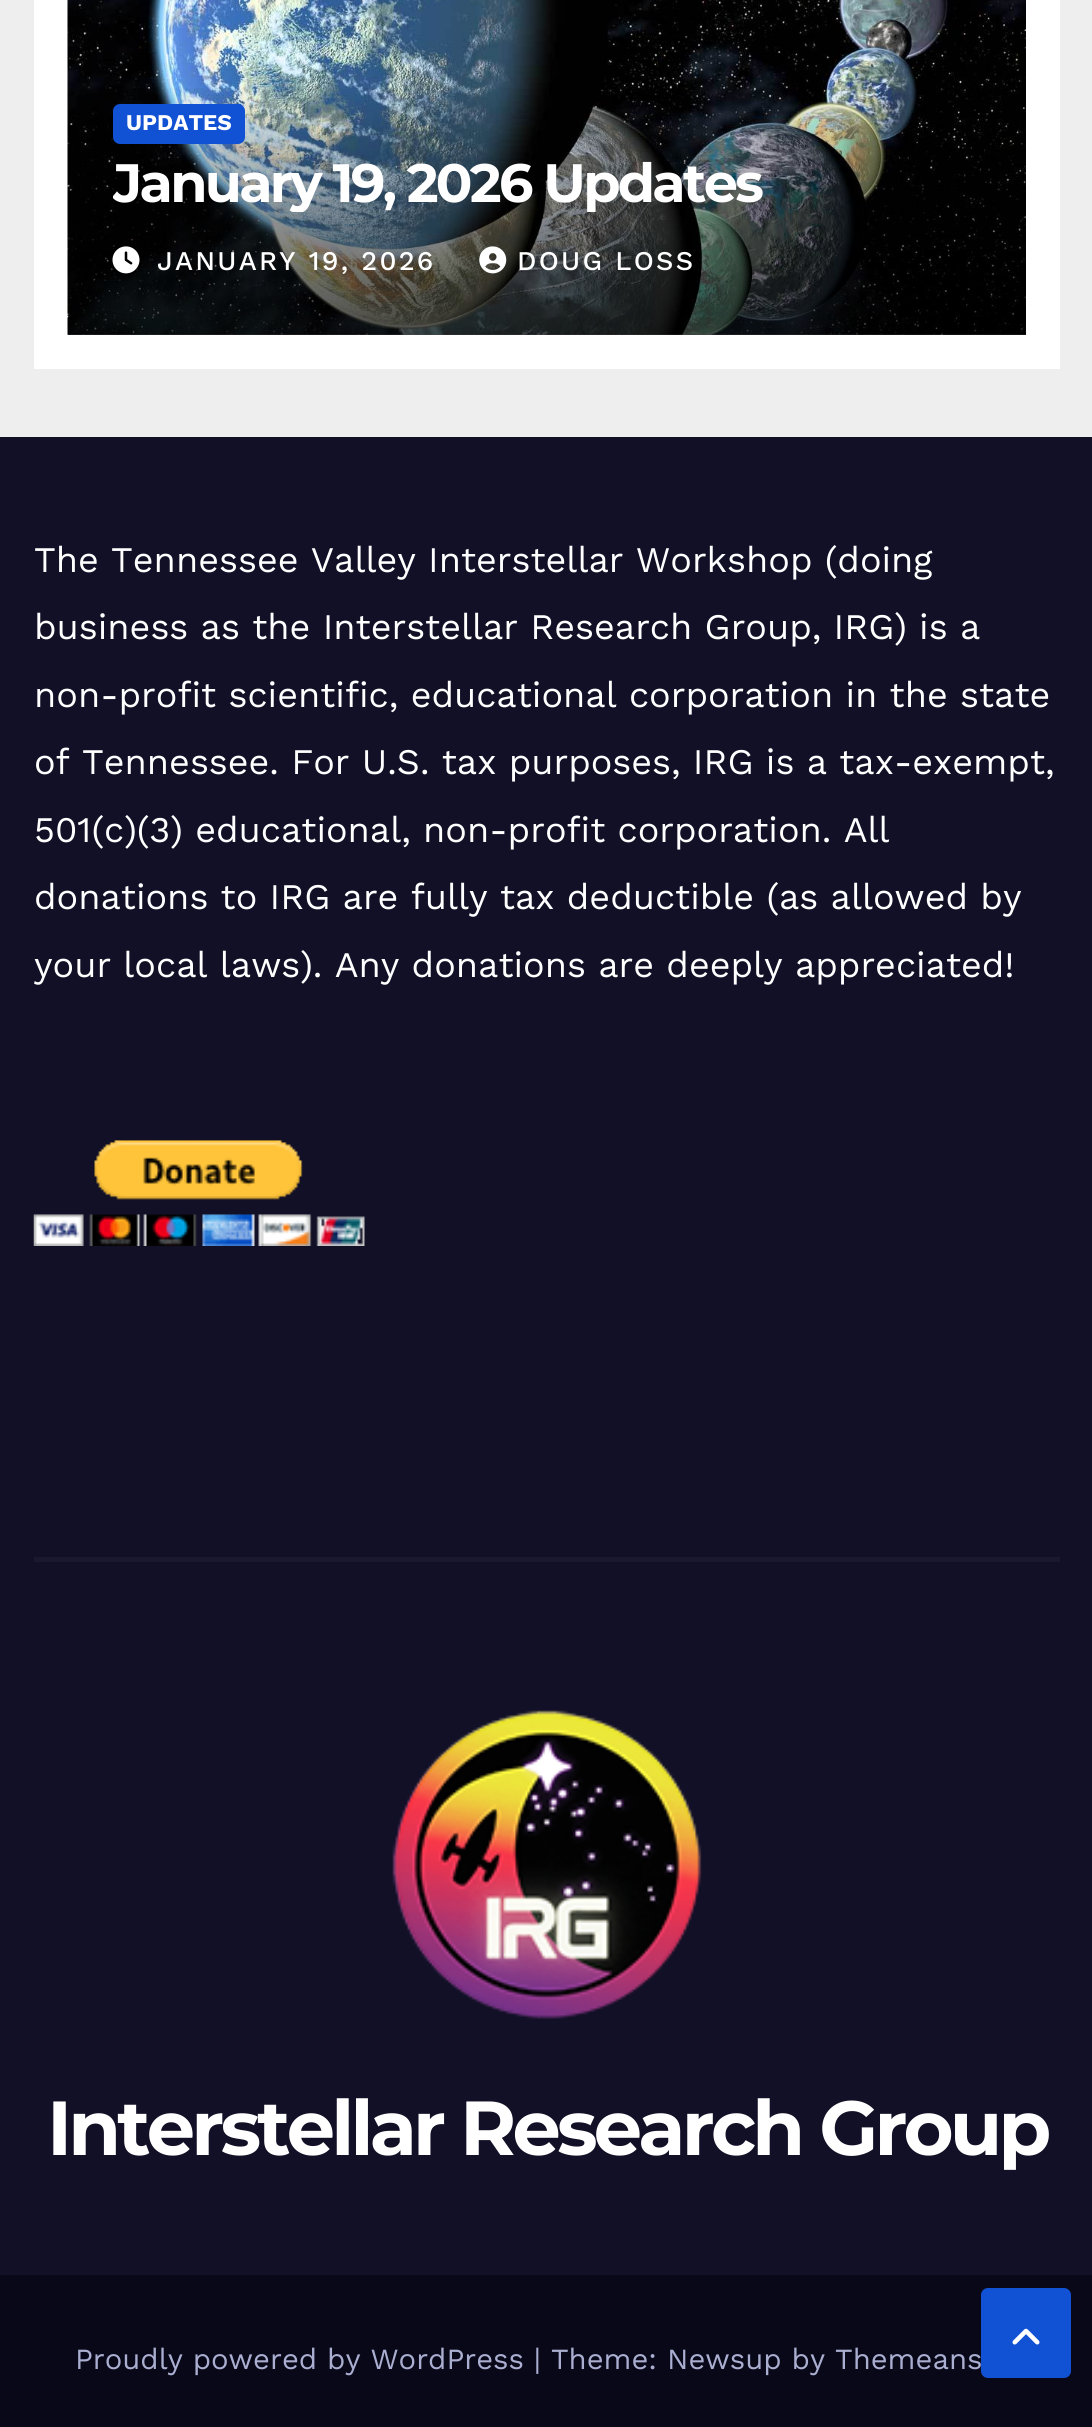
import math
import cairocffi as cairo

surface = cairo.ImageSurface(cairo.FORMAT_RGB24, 1092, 2427)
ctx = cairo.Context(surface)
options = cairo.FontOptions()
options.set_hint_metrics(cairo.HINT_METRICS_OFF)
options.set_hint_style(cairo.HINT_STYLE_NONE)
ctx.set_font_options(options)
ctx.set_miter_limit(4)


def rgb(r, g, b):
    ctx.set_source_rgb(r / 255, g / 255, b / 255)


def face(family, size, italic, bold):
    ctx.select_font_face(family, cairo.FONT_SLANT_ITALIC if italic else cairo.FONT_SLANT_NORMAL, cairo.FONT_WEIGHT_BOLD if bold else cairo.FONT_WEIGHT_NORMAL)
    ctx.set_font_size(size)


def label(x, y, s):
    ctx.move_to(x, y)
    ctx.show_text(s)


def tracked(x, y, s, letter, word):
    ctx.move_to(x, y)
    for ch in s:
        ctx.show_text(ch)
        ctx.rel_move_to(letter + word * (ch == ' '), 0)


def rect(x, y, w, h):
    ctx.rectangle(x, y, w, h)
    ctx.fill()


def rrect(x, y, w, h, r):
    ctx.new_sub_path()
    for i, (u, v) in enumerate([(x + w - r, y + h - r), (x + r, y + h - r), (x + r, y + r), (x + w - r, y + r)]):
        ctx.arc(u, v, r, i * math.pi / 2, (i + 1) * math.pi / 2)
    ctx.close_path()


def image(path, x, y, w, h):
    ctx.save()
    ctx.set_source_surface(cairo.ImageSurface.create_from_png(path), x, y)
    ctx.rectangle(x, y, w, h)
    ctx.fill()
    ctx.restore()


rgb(238, 238, 238)
ctx.paint()
rgb(255, 255, 255)
rect(34, 0, 1026, 369)
image('image0.png', 67, 0, 959, 335)
gradient = cairo.LinearGradient(547, 81, 547, 335)
gradient.add_color_stop_rgba(0, 0, 0, 0, 0)
gradient.add_color_stop_rgba(0.5, 0, 0, 0, 0.4)
gradient.add_color_stop_rgba(1, 0, 0, 0, 0.7)
ctx.set_source(gradient)
rect(68, 88, 958, 247)
rgb(17, 81, 211)
rrect(113, 104, 132, 40, 7)
ctx.fill()
face('Work Sans', 22.5, 0, 1)
rgb(255, 255, 255)
label(126, 130, 'UPDATES')
ctx.save()
ctx.rectangle(113, 155, 868, 57)
ctx.clip()
face('Montserrat', 54, 0, 1)
tracked(113, 202, 'January 19, 2026 Updates', -2.7, 0)
ctx.restore()
image('image1.png', 112, 246, 28, 28)
face('Work Sans Medium', 27, 0, 0)
tracked(157, 270, 'JANUARY 19, 2026', 2.25, 0)
image('image2.png', 479, 246, 28, 28)
tracked(517, 270, 'DOUG LOSS', 2.25, 0)
rgb(18, 16, 38)
rect(0, 437, 1092, 1838)
face('Work Sans', 36, 0, 0)
rgb(255, 255, 255)
label(34, 572, 'The Tennessee Valley Interstellar Workshop (doing')
label(34, 639, 'business as the Interstellar Research Group, IRG) is a')
label(34, 707, 'non-profit scientific, educational corporation in the state')
label(34, 774, 'of Tennessee. For U.S. tax purposes, IRG is a tax-exempt,')
label(34, 842, '501(c)(3) educational, non-profit corporation. All')
label(34, 909, 'donations to IRG are fully tax deductible (as allowed by')
label(34, 977, 'your local laws). Any donations are deeply appreciated!')
image('image3.png', 33, 1140, 332, 106)
rgb(26, 24, 46)
rect(34, 1557, 1026, 5)
image('image4.png', 392, 1710, 310, 309)
face('Montserrat', 76.5, 0, 1)
rgb(255, 255, 255)
tracked(47, 2155, 'Interstellar Research Group', -3.8, 0)
rgb(9, 8, 24)
rect(0, 2275, 1092, 152)
face('Work Sans', 29.25, 0, 0)
rgb(170, 174, 209)
label(75, 2369, 'Proudly powered by WordPress | Theme: Newsup by Themeans')
rgb(17, 81, 211)
rrect(983.5, 2290.5, 85, 85, 4.5)
ctx.fill_preserve()
ctx.set_line_width(5)
ctx.stroke()
image('image5.png', 1012, 2328, 28, 17)
surface.write_to_png('render.png')
